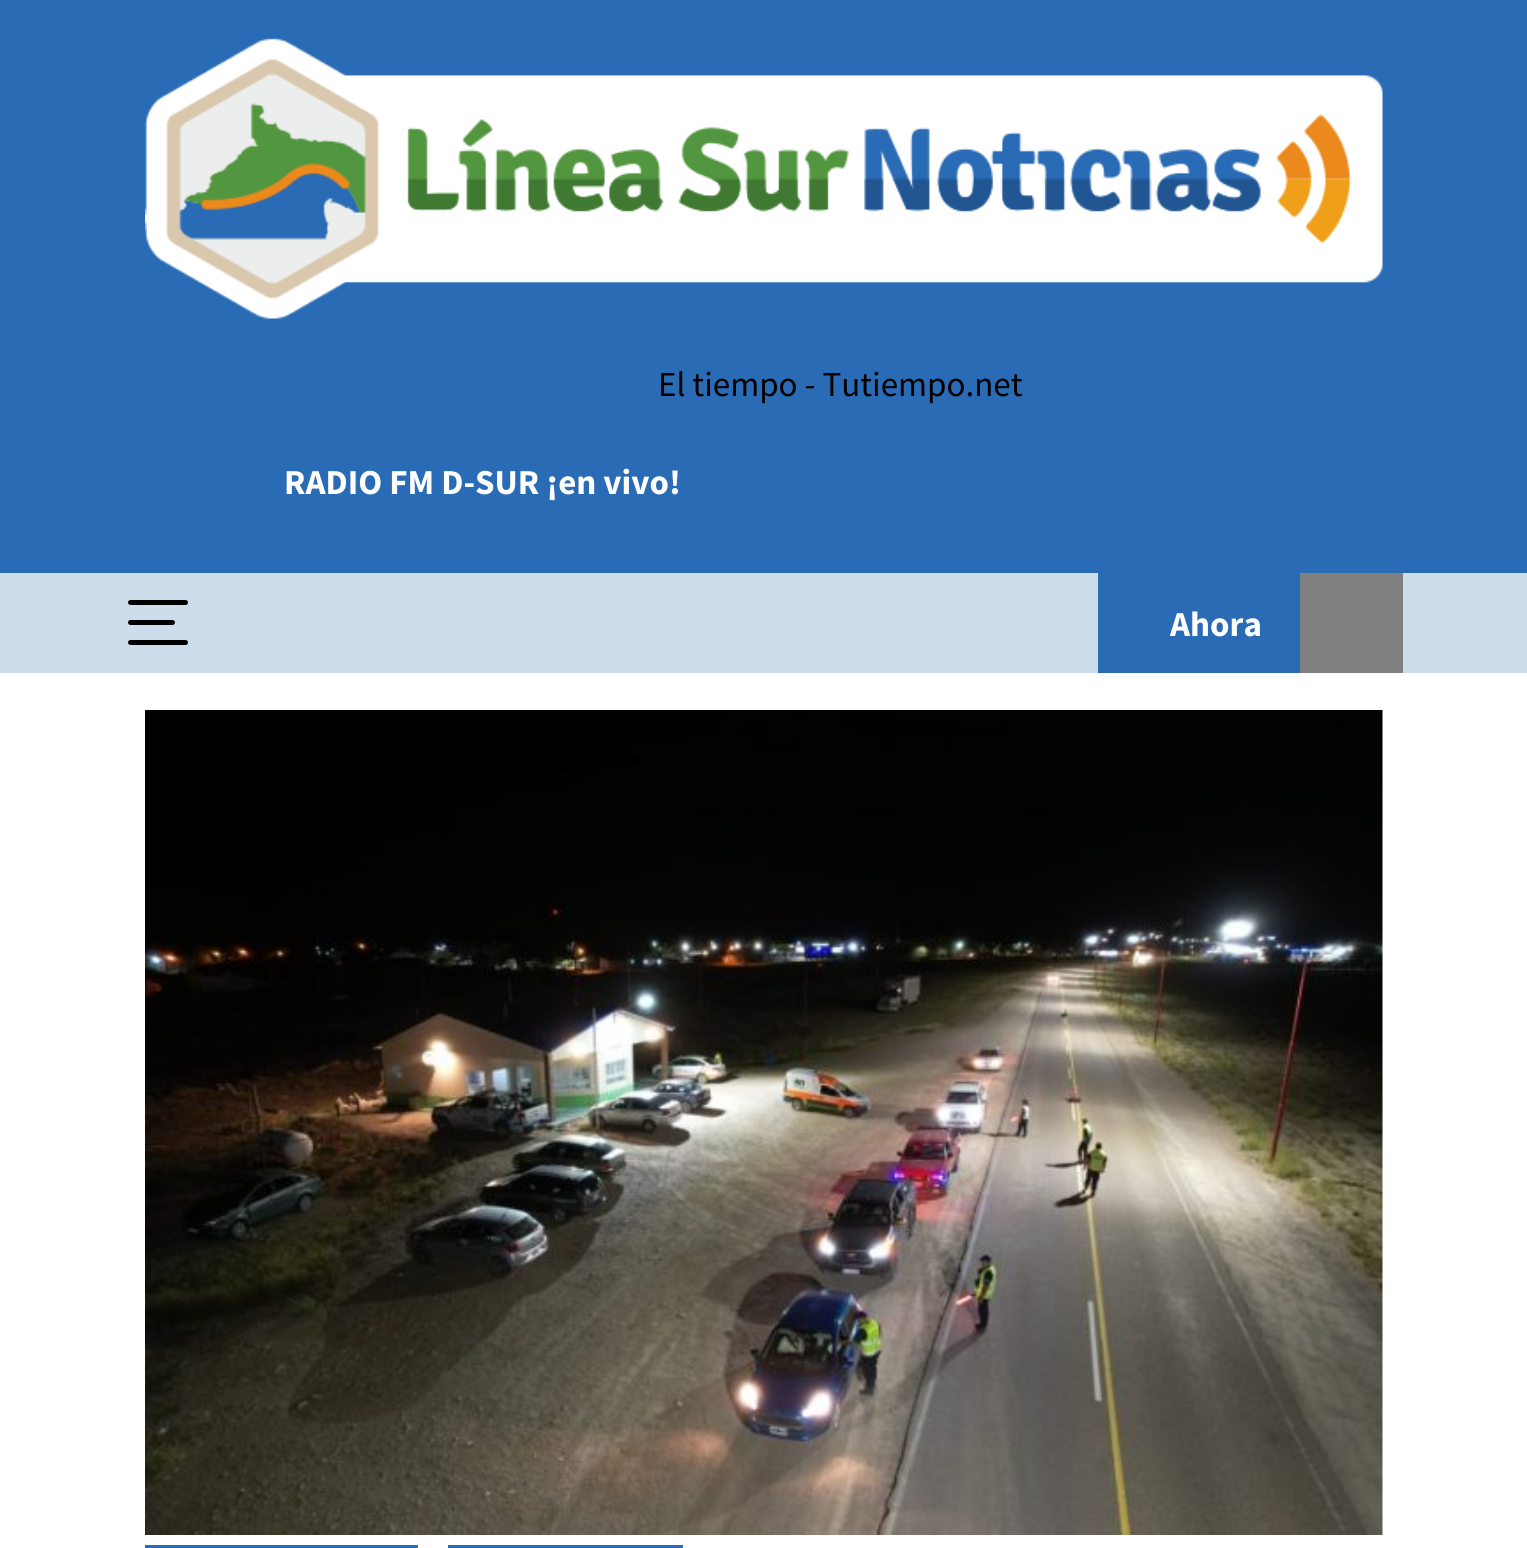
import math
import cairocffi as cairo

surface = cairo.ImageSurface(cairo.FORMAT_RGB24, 1527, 1548)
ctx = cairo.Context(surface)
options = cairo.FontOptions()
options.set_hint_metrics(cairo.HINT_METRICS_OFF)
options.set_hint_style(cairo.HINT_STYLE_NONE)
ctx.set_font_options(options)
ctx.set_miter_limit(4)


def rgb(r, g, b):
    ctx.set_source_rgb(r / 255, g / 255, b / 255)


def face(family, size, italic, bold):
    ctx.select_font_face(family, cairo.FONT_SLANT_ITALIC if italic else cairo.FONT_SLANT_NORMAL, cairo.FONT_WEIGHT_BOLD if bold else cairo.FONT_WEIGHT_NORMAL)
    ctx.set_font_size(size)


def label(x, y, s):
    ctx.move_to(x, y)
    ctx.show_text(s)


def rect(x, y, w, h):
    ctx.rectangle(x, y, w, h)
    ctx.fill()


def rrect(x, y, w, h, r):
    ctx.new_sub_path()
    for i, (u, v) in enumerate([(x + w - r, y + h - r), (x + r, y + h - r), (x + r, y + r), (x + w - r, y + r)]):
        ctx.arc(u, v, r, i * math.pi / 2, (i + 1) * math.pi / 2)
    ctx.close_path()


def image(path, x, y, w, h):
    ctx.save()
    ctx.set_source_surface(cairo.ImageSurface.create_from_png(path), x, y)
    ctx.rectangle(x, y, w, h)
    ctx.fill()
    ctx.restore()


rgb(255, 255, 255)
ctx.paint()
rgb(41, 107, 181)
rect(0, 0, 1527, 573)
image('image0.png', 145, 38, 1238, 281)
face('Source Sans Pro', 35, 0, 0)
rgb(0, 0, 0)
label(658, 396, 'El tiempo - Tutiempo.net')
face('Source Sans Pro', 35, 0, 1)
rgb(255, 255, 255)
label(284, 494, 'RADIO FM D-SUR ¡en vivo!')
rgb(205, 221, 235)
rect(0, 573, 1527, 100)
rgb(0, 0, 0)
rrect(128, 600, 60, 5, 2.5)
ctx.fill()
rrect(128, 640, 60, 5, 2.5)
ctx.fill()
rrect(128, 620, 47, 5, 2.5)
ctx.fill()
rgb(41, 107, 181)
rect(1098, 573, 202, 100)
rgb(255, 255, 255)
label(1170, 636, 'Ahora')
rgb(128, 128, 128)
rect(1300, 573, 103, 100)
image('image1.png', 145, 710, 1238, 825)
ctx.rectangle(146.5, 1546.5, 270, 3)
rgb(41, 107, 181)
ctx.set_line_width(3)
ctx.stroke()
ctx.rectangle(449.5, 1546.5, 232, 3)
ctx.stroke()
surface.write_to_png('render.png')
